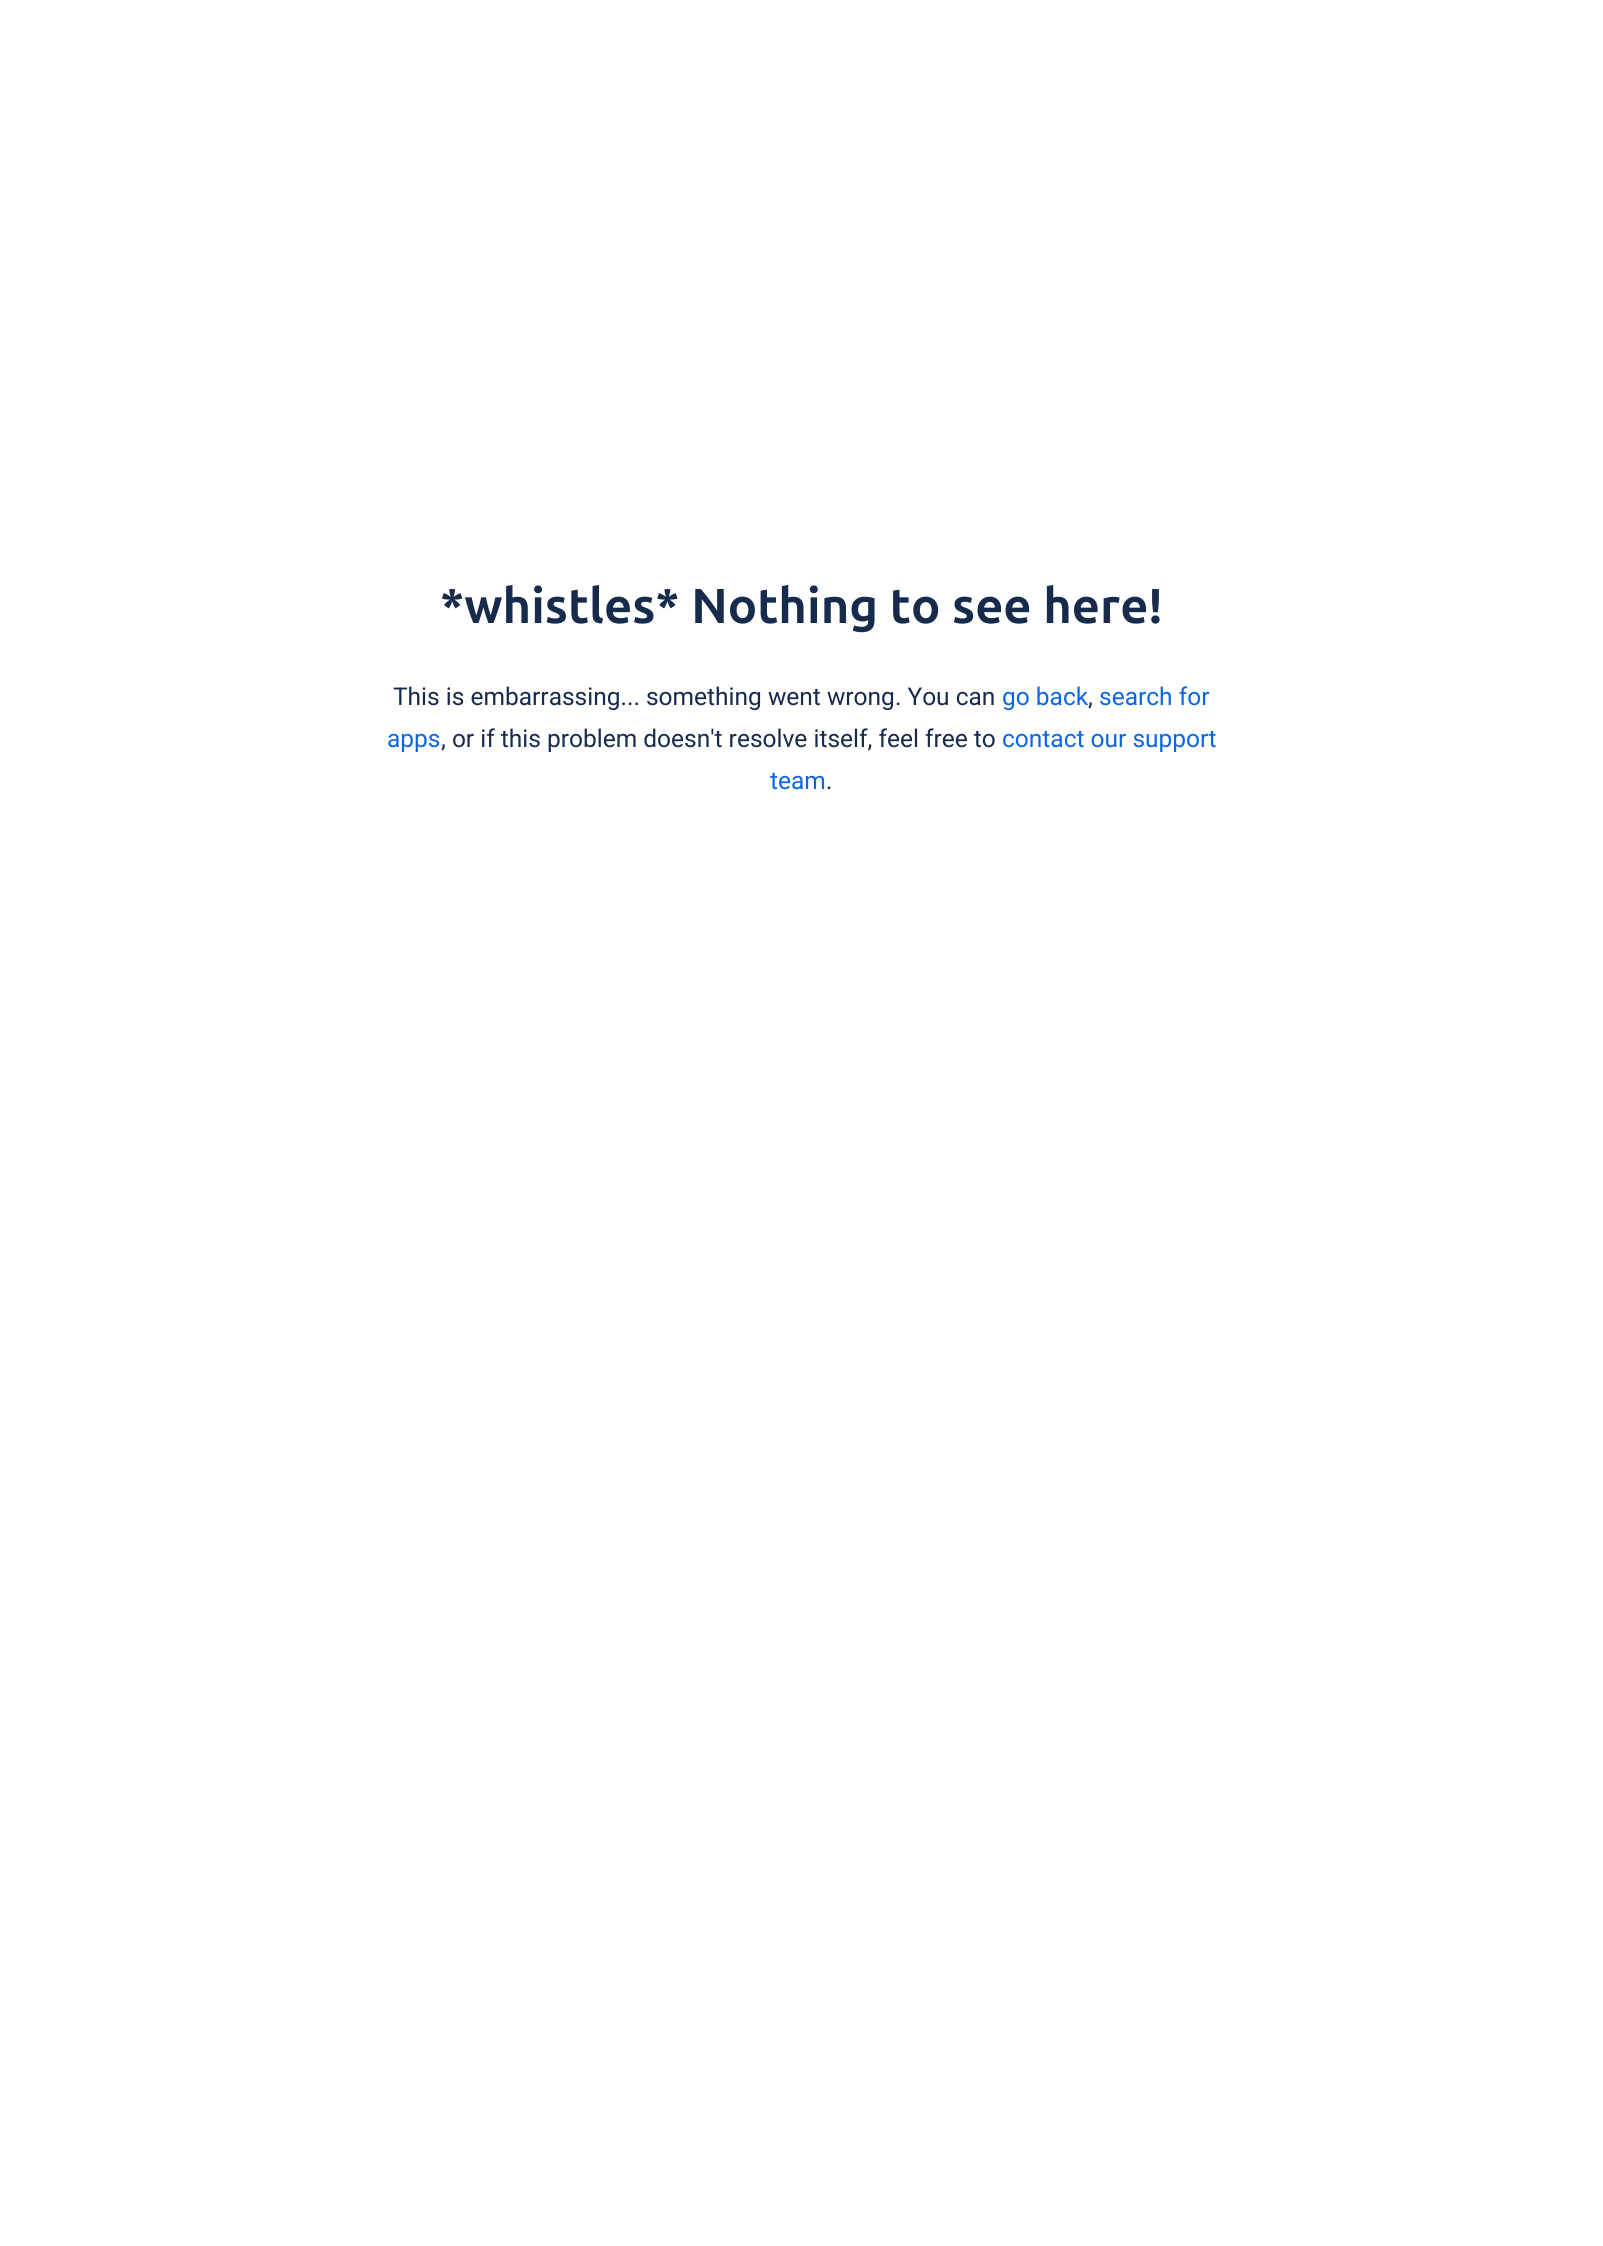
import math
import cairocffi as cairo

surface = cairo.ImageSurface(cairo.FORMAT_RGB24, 1603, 2246)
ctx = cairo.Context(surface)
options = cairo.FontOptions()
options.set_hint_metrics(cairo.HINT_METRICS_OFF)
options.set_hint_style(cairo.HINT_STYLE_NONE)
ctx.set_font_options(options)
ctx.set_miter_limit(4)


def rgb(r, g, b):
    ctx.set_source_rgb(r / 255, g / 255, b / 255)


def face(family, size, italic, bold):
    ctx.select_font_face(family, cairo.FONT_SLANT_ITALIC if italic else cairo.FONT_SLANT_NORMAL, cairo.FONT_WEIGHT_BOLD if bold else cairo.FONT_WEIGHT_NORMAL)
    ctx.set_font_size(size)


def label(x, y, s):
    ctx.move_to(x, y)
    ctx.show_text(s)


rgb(255, 255, 255)
ctx.paint()
face('Ubuntu', 49, 0, 1)
rgb(23, 43, 77)
label(440, 623, '*whistles* Nothing to see here!')
face('Roboto', 24.5, 0, 0)
label(393, 705, 'This is embarrassing... something went wrong. You can')
rgb(12, 102, 228)
label(1002, 705, 'go back')
rgb(23, 43, 77)
label(1088, 705, ',')
rgb(12, 102, 228)
label(1099, 705, 'search for')
label(387, 747, 'apps')
rgb(23, 43, 77)
label(441, 747, ', or if this problem doesn\'t resolve itself, feel free to')
rgb(12, 102, 228)
label(1002, 747, 'contact our support')
label(770, 789, 'team')
rgb(23, 43, 77)
label(826, 789, '.')
surface.write_to_png('render.png')
